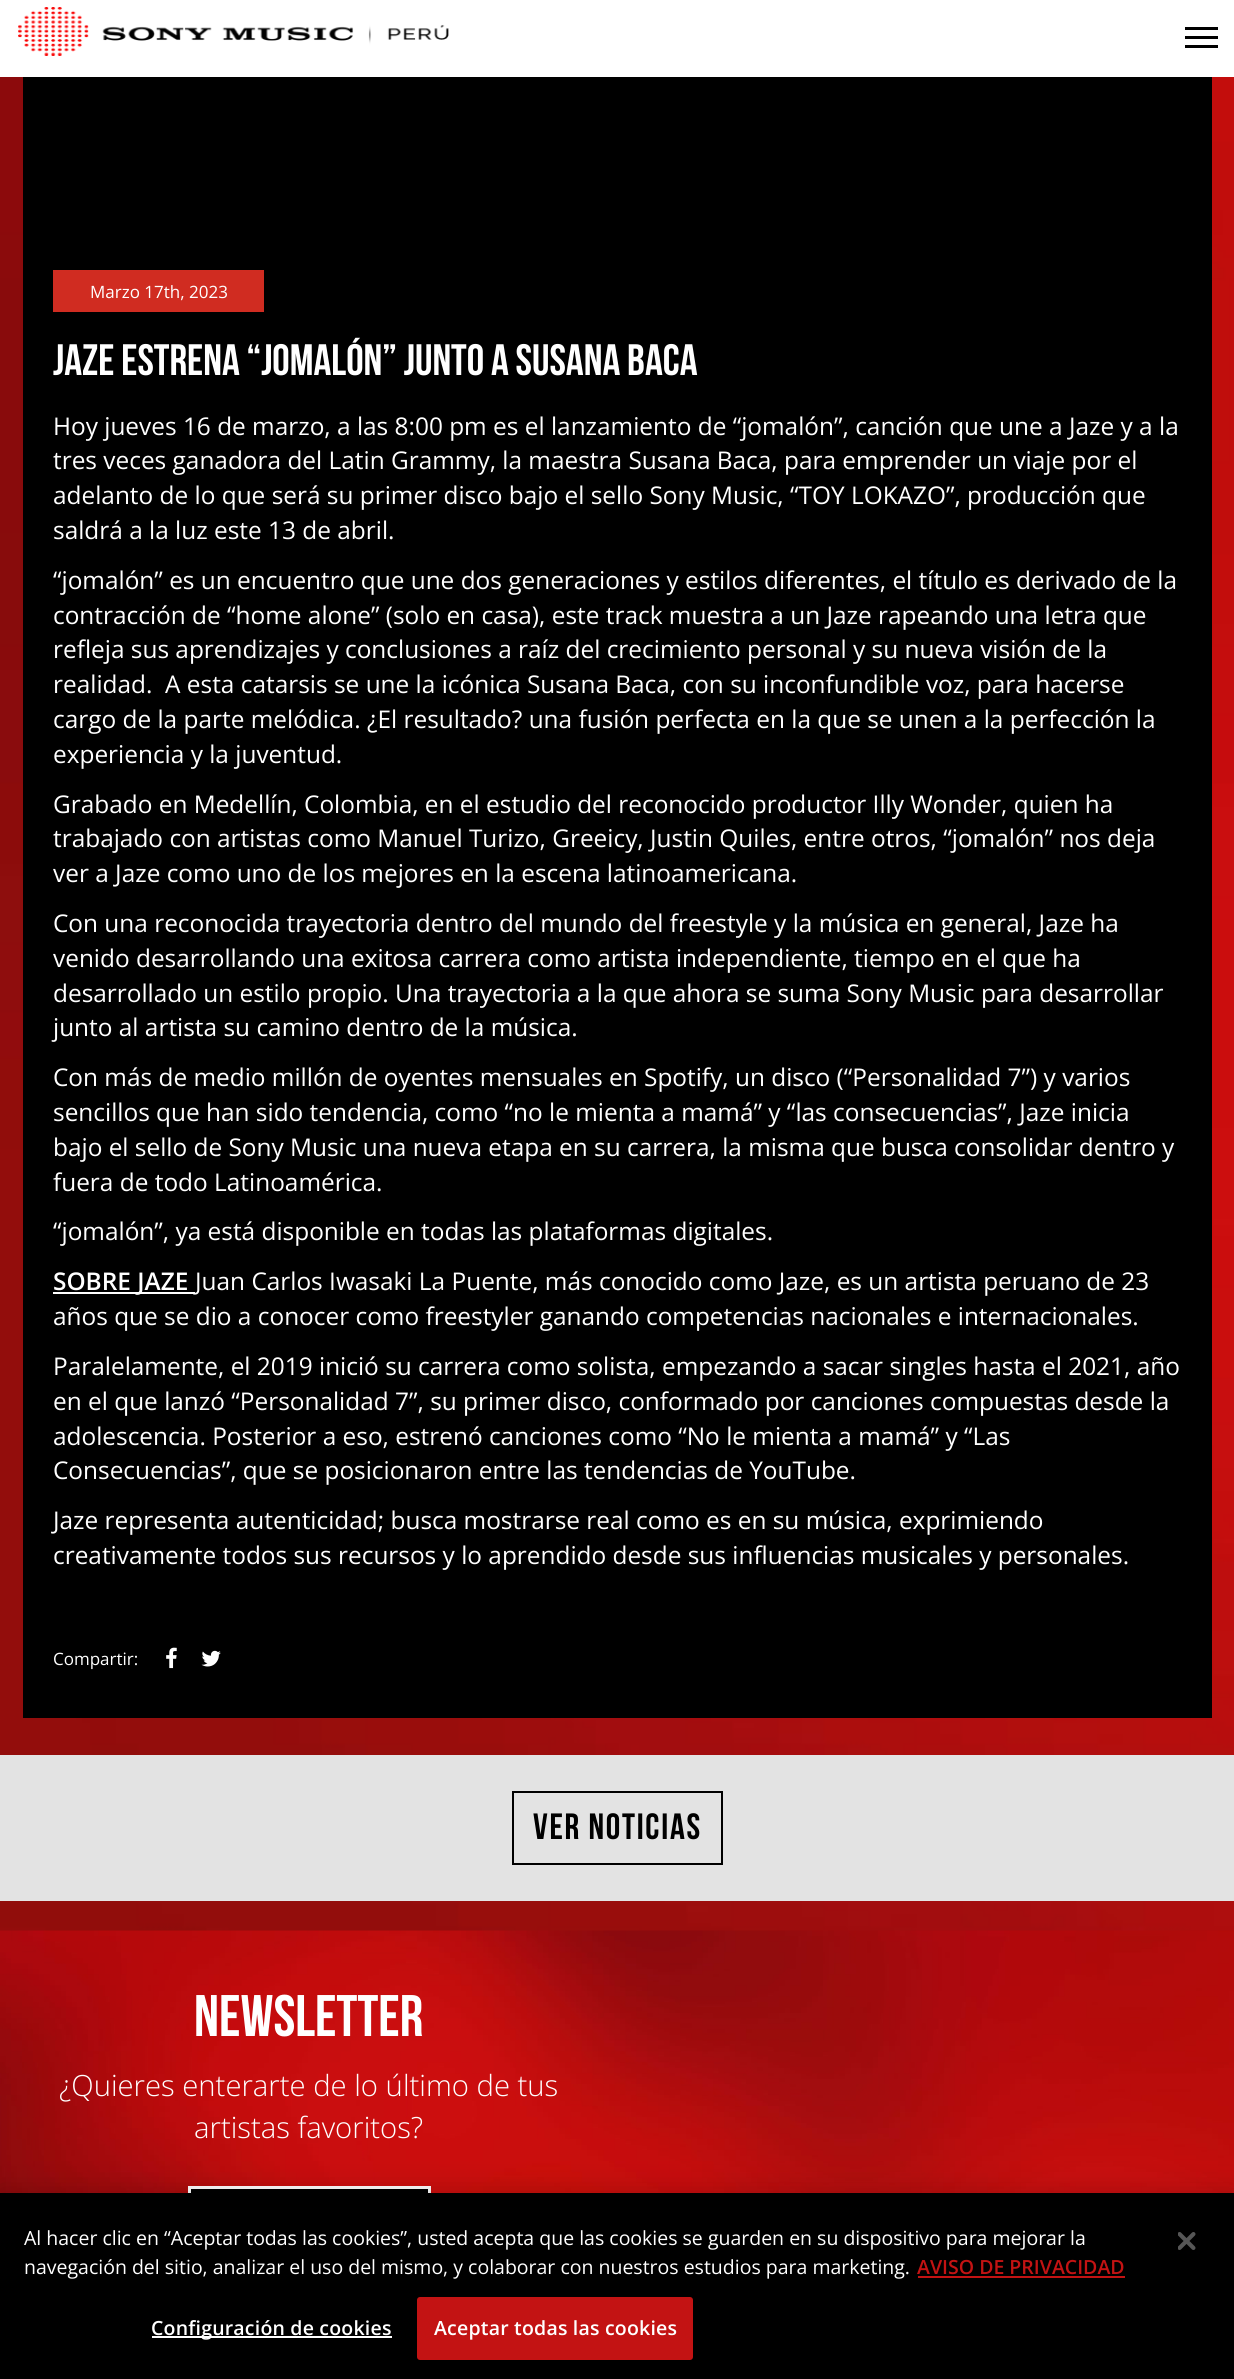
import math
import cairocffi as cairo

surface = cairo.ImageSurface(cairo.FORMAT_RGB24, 1234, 2379)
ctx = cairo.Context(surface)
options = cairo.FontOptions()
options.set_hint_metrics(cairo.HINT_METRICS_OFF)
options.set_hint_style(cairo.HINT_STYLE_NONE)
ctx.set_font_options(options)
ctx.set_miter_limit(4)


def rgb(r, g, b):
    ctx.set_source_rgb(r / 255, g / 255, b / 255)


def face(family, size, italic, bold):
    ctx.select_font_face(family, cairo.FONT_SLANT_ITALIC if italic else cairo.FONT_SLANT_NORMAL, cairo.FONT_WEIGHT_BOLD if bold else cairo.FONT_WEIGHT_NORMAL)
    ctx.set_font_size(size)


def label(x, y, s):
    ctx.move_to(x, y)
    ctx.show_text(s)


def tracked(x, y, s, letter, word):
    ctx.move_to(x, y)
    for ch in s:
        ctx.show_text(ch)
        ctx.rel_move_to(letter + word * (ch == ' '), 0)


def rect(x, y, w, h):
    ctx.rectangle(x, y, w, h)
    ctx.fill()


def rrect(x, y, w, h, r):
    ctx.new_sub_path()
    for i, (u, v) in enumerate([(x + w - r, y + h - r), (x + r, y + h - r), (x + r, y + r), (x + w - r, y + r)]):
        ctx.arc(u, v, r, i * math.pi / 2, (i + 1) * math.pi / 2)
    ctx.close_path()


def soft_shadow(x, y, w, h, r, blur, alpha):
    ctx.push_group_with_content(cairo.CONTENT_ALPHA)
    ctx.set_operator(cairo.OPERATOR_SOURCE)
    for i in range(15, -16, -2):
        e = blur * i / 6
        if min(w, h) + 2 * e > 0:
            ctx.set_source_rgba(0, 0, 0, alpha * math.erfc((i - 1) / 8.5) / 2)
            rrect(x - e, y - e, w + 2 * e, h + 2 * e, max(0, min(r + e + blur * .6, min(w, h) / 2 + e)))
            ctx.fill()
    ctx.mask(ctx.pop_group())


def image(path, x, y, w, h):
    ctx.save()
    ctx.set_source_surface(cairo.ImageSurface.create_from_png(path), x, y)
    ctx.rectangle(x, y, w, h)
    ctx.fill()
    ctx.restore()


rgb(255, 255, 255)
ctx.paint()
image('image0.png', 0, 77, 1234, 1854)
image('image1.png', 18, 7, 431, 49)
rgb(0, 0, 0)
rect(1185, 27, 33, 3)
rect(1185, 36, 33, 3)
rect(1185, 45, 33, 3)
rect(23, 77, 1189, 1641)
rgb(208, 44, 33)
rect(53, 270, 211, 42)
face('Open Sans', 17, 0, 0)
rgb(255, 255, 255)
label(90, 298, 'Marzo 17th, 2023')
face('Bebas Neue', 43.9, 0, 1)
label(53, 375, 'JAZE ESTRENA “JOMALÓN” JUNTO A SUSANA BACA')
face('Open Sans', 24.4, 0, 0)
label(53, 435, 'Hoy jueves 16 de marzo, a las 8:00 pm es el lanzamiento de “jomalón”, canción que une a Jaze y a la')
label(53, 469, 'tres veces ganadora del Latin Grammy, la maestra Susana Baca, para emprender un viaje por el')
label(53, 504, 'adelanto de lo que será su primer disco bajo el sello Sony Music, “TOY LOKAZO”, producción que')
label(53, 539, 'saldrá a la luz este 13 de abril.')
label(53, 589, '“jomalón” es un encuentro que une dos generaciones y estilos diferentes, el título es derivado de la')
label(53, 624, 'contracción de “home alone” (solo en casa), este track muestra a un Jaze rapeando una letra que')
label(53, 658, 'refleja sus aprendizajes y conclusiones a raíz del crecimiento personal y su nueva visión de la')
label(53, 693, 'realidad.  A esta catarsis se une la icónica Susana Baca, con su inconfundible voz, para hacerse')
label(53, 728, 'cargo de la parte melódica. ¿El resultado? una fusión perfecta en la que se unen a la perfección la')
label(53, 763, 'experiencia y la juventud.')
label(53, 813, 'Grabado en Medellín, Colombia, en el estudio del reconocido productor Illy Wonder, quien ha')
label(53, 847, 'trabajado con artistas como Manuel Turizo, Greeicy, Justin Quiles, entre otros, “jomalón” nos deja')
label(53, 882, 'ver a Jaze como uno de los mejores en la escena latinoamericana.')
label(53, 932, 'Con una reconocida trayectoria dentro del mundo del freestyle y la música en general, Jaze ha')
label(53, 967, 'venido desarrollando una exitosa carrera como artista independiente, tiempo en el que ha')
label(53, 1002, 'desarrollado un estilo propio. Una trayectoria a la que ahora se suma Sony Music para desarrollar')
label(53, 1036, 'junto al artista su camino dentro de la música.')
label(53, 1086, 'Con más de medio millón de oyentes mensuales en Spotify, un disco (“Personalidad 7”) y varios')
label(53, 1121, 'sencillos que han sido tendencia, como “no le mienta a mamá” y “las consecuencias”, Jaze inicia')
label(53, 1156, 'bajo el sello de Sony Music una nueva etapa en su carrera, la misma que busca consolidar dentro y')
label(53, 1191, 'fuera de todo Latinoamérica.')
label(53, 1240, '“jomalón”, ya está disponible en todas las plataformas digitales.')
rect(53, 1292, 142, 2)
face('Open Sans SemiBold', 24.4, 0, 0)
label(53, 1290, 'SOBRE JAZE')
face('Open Sans', 24.4, 0, 0)
label(195, 1290, 'Juan Carlos Iwasaki La Puente, más conocido como Jaze, es un artista peruano de 23')
label(53, 1325, 'años que se dio a conocer como freestyler ganando competencias nacionales e internacionales.')
label(53, 1375, 'Paralelamente, el 2019 inició su carrera como solista, empezando a sacar singles hasta el 2021, año')
label(53, 1410, 'en el que lanzó “Personalidad 7”, su primer disco, conformado por canciones compuestas desde la')
label(53, 1445, 'adolescencia. Posterior a eso, estrenó canciones como “No le mienta a mamá” y “Las')
label(53, 1479, 'Consecuencias”, que se posicionaron entre las tendencias de YouTube.')
label(53, 1529, 'Jaze representa autenticidad; busca mostrarse real como es en su música, exprimiendo')
label(53, 1564, 'creativamente todos sus recursos y lo aprendido desde sus influencias musicales y personales.')
face('Open Sans', 17, 0, 0)
label(53, 1665, 'Compartir:')
image('image2.png', 166, 1647, 11, 22)
image('image3.png', 201, 1650, 20, 17)
rgb(227, 227, 227)
rect(0, 1755, 1234, 146)
ctx.rectangle(513, 1792, 209, 72)
rgb(0, 0, 0)
ctx.stroke()
face('Bebas Neue', 36.5, 0, 1)
tracked(533, 1839, 'VER NOTICIAS', 1.75, 0)
image('image4.png', 0, 1930, 1234, 263)
face('Bebas Neue', 58.5, 0, 1)
rgb(255, 255, 255)
label(194, 2036, 'NEWSLETTER')
face('Open Sans Light', 29.25, 0, 0)
label(59, 2096, '¿Quieres enterarte de lo último de tus')
label(194, 2138, 'artistas favoritos?')
rgb(0, 0, 0)
rect(191, 2189, 237, 4)
ctx.rectangle(189.5, 2187.5, 240, 72)
rgb(255, 255, 255)
ctx.set_line_width(3)
ctx.stroke()
rgb(0, 0, 0)
soft_shadow(0, 2193, 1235, 186, 0, 13.5, 0.2)
rgb(0, 0, 0)
rect(0, 2193, 1234, 186)
face('Open Sans', 19.5, 0, 0)
rgb(255, 255, 255)
label(24, 2245, 'Al hacer clic en “Aceptar todas las cookies”, usted acepta que las cookies se guarden en su dispositivo para mejorar la')
label(24, 2274, 'navegación del sitio, analizar el uso del mismo, y colaborar con nuestros estudios para marketing.')
face('Open Sans SemiBold', 19.5, 0, 0)
rgb(195, 19, 19)
label(917, 2274, 'AVISO DE PRIVACIDAD')
rect(918, 2276, 207, 2)
rgb(255, 255, 255)
rect(152, 2336, 240, 2)
tracked(151, 2335, 'Configuración de cookies', 0.2, 0)
rgb(195, 19, 19)
rrect(418, 2298, 274, 61, 2)
ctx.fill_preserve()
ctx.set_line_width(2)
ctx.stroke()
rgb(255, 255, 255)
tracked(434, 2335, 'Aceptar todas las cookies', 0.2, 0)
image('image5.png', 1178, 2232, 18, 18)
surface.write_to_png('render.png')
